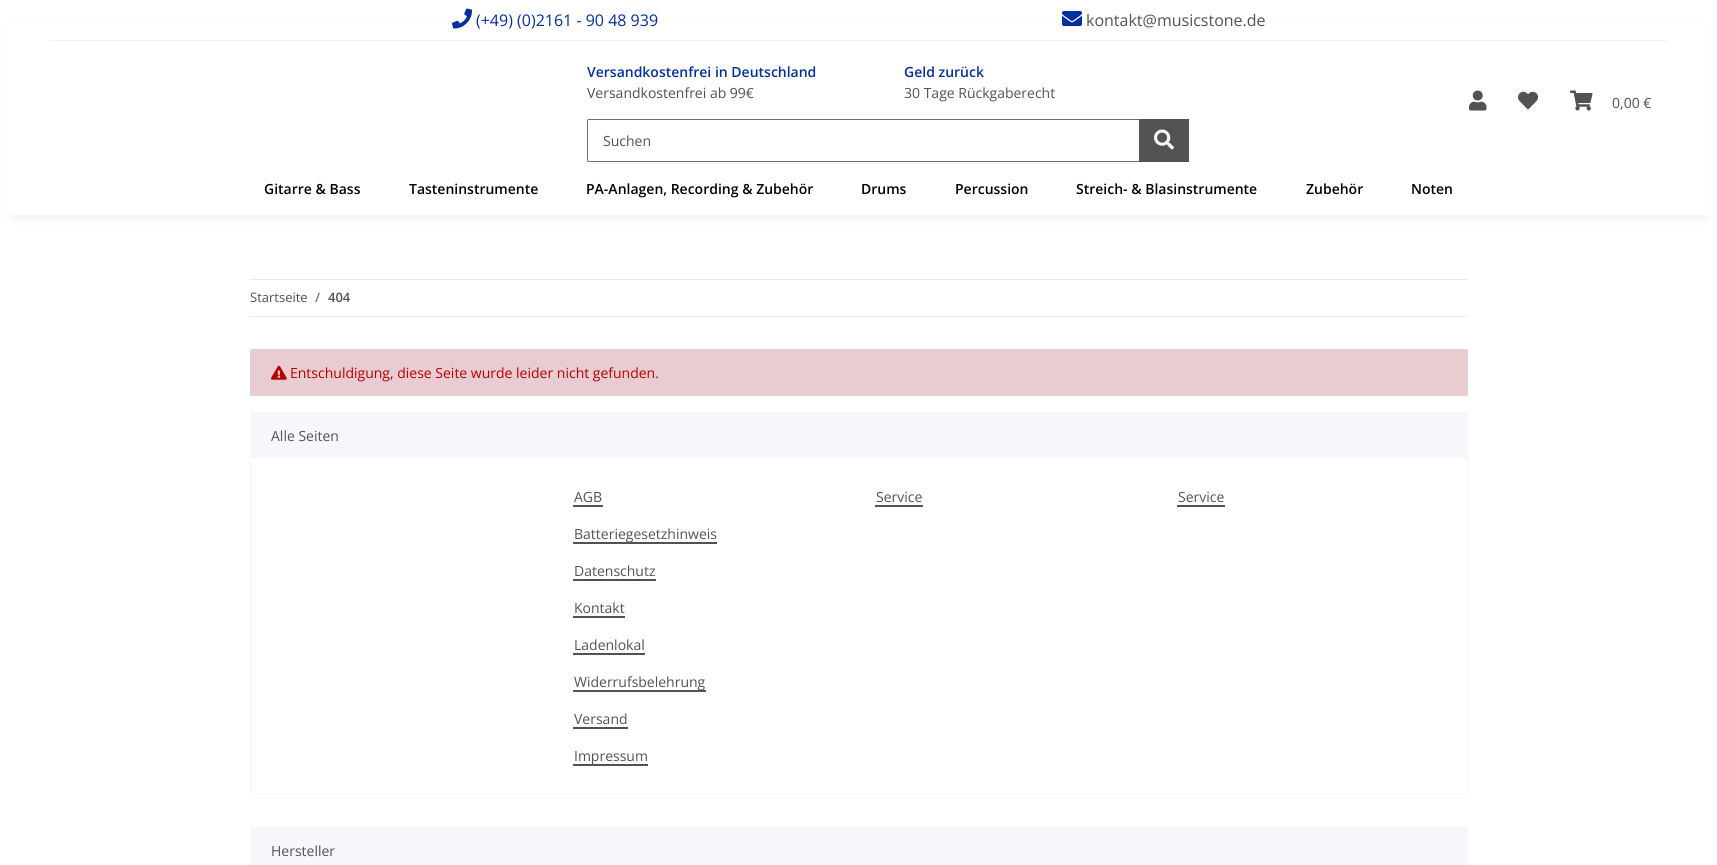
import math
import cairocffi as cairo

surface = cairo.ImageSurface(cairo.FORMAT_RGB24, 1717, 865)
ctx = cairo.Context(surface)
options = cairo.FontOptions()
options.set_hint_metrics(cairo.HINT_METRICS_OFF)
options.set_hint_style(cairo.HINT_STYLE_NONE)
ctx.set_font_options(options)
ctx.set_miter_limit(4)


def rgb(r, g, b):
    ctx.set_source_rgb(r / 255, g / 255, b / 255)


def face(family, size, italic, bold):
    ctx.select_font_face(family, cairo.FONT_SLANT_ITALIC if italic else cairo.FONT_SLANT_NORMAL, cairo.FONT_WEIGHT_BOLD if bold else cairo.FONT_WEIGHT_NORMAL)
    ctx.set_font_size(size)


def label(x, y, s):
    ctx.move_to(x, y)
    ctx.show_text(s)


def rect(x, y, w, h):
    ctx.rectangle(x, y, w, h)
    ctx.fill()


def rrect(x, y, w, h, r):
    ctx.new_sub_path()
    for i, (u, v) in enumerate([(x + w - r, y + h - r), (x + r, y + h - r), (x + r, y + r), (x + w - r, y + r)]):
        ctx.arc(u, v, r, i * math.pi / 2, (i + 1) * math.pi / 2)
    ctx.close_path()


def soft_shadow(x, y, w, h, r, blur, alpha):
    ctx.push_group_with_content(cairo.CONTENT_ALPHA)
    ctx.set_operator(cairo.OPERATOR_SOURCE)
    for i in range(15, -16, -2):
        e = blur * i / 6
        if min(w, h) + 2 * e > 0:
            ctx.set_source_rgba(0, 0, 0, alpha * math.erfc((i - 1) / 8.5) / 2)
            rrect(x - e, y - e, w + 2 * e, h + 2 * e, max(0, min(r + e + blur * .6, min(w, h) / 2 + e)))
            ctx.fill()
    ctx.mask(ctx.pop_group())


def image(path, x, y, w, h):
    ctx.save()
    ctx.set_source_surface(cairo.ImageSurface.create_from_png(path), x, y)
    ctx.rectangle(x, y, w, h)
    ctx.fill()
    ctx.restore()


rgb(255, 255, 255)
ctx.paint()
rgb(0, 0, 0)
soft_shadow(12, 28, 1693, 191, 0, 4.5, 0.06)
rgb(255, 255, 255)
rect(8, 24, 1701, 191)
rgb(242, 242, 242)
rect(50, 40, 1618, 1)
image('image0.png', 452, 8, 20, 21)
face('Open Sans', 16, 0, 0)
rgb(2, 48, 160)
label(476, 26, '(+49) (0)2161 - 90 48 939')
image('image1.png', 1062, 11, 20, 15)
rgb(82, 82, 82)
label(1086, 26, 'kontakt@musicstone.de')
face('Open Sans SemiBold', 14, 0, 0)
rgb(2, 48, 160)
label(587, 77, 'Versandkostenfrei in Deutschland')
face('Open Sans', 14, 0, 0)
rgb(82, 82, 82)
label(587, 98, 'Versandkostenfrei ab 99€')
face('Open Sans SemiBold', 14, 0, 0)
rgb(2, 48, 160)
label(904, 77, 'Geld zurück')
face('Open Sans', 14, 0, 0)
rgb(82, 82, 82)
label(904, 98, '30 Tage Rückgaberecht')
ctx.new_path()
ctx.move_to(589, 119.5)
ctx.line_to(1139.5, 119.5)
ctx.line_to(1139.5, 161.5)
ctx.line_to(589, 161.5)
ctx.curve_to(588, 161.5, 587.5, 161, 587.5, 160)
ctx.line_to(587.5, 121)
ctx.curve_to(587.5, 120, 588, 119.5, 589, 119.5)
ctx.close_path()
rgb(112, 112, 112)
ctx.set_line_width(1)
ctx.stroke()
rgb(82, 82, 82)
label(603, 146, 'Suchen')
rect(1139, 119, 50, 43)
image('image2.png', 1154, 129, 20, 21)
image('image3.png', 1469, 90, 18, 21)
image('image4.png', 1518, 91, 20, 19)
image('image5.png', 1570, 90, 23, 21)
label(1612, 108, '0,00 €')
face('Open Sans SemiBold', 14, 0, 0)
rgb(0, 0, 0)
label(264, 194, 'Gitarre & Bass')
label(409, 194, 'Tasteninstrumente')
label(586, 194, 'PA-Anlagen, Recording & Zubehör')
label(861, 194, 'Drums')
label(955, 194, 'Percussion')
label(1076, 194, 'Streich- & Blasinstrumente')
label(1306, 194, 'Zubehör')
label(1411, 194, 'Noten')
rgb(235, 235, 235)
rect(250, 279, 1218, 1)
rect(250, 316, 1218, 1)
face('Open Sans', 13, 0, 0)
rgb(82, 82, 82)
label(250, 302, 'Startseite')
face('Open Sans SemiBold', 13, 0, 0)
rgb(112, 112, 112)
label(315, 302, '/')
rgb(82, 82, 82)
label(328, 302, '404')
rgb(232, 204, 210)
rrect(250.5, 349.5, 1217, 46, 1.5)
ctx.fill_preserve()
ctx.stroke()
image('image6.png', 271, 365, 16, 15)
face('Open Sans', 14, 0, 0)
rgb(185, 0, 0)
label(290, 378, 'Entschuldigung, diese Seite wurde leider nicht gefunden.')
rrect(250.5, 412.5, 1217, 382, 1.5)
rgb(245, 247, 250)
ctx.stroke()
ctx.new_path()
ctx.move_to(252, 413)
ctx.line_to(1466, 413)
ctx.curve_to(1466.5, 413, 1467, 413.5, 1467, 414)
ctx.line_to(1467, 458)
ctx.line_to(251, 458)
ctx.line_to(251, 414)
ctx.curve_to(251, 413.5, 251.5, 413, 252, 413)
ctx.close_path()
ctx.fill()
rgb(82, 82, 82)
label(271, 441, 'Alle Seiten')
label(574, 502, 'AGB')
rect(573, 505, 30, 2)
label(574, 539, 'Batteriegesetzhinweis')
rect(573, 542, 144, 2)
label(574, 576, 'Datenschutz')
rect(573, 579, 83, 2)
label(574, 613, 'Kontakt')
rect(573, 616, 52, 2)
label(574, 650, 'Ladenlokal')
rect(573, 653, 72, 2)
label(574, 687, 'Widerrufsbelehrung')
rect(573, 690, 133, 2)
label(574, 724, 'Versand')
rect(573, 727, 55, 2)
label(574, 761, 'Impressum')
rect(573, 764, 75, 2)
label(876, 502, 'Service')
rect(875, 505, 48, 2)
label(1178, 502, 'Service')
rect(1177, 505, 48, 2)
rrect(250.5, 827.5, 1217, 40, 1.5)
rgb(245, 247, 250)
ctx.stroke()
ctx.new_path()
ctx.move_to(252, 828)
ctx.line_to(1466, 828)
ctx.curve_to(1466.5, 828, 1467, 828.5, 1467, 829)
ctx.line_to(1467, 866)
ctx.line_to(251, 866)
ctx.line_to(251, 829)
ctx.curve_to(251, 828.5, 251.5, 828, 252, 828)
ctx.close_path()
ctx.fill()
rgb(82, 82, 82)
label(271, 856, 'Hersteller')
surface.write_to_png('render.png')
